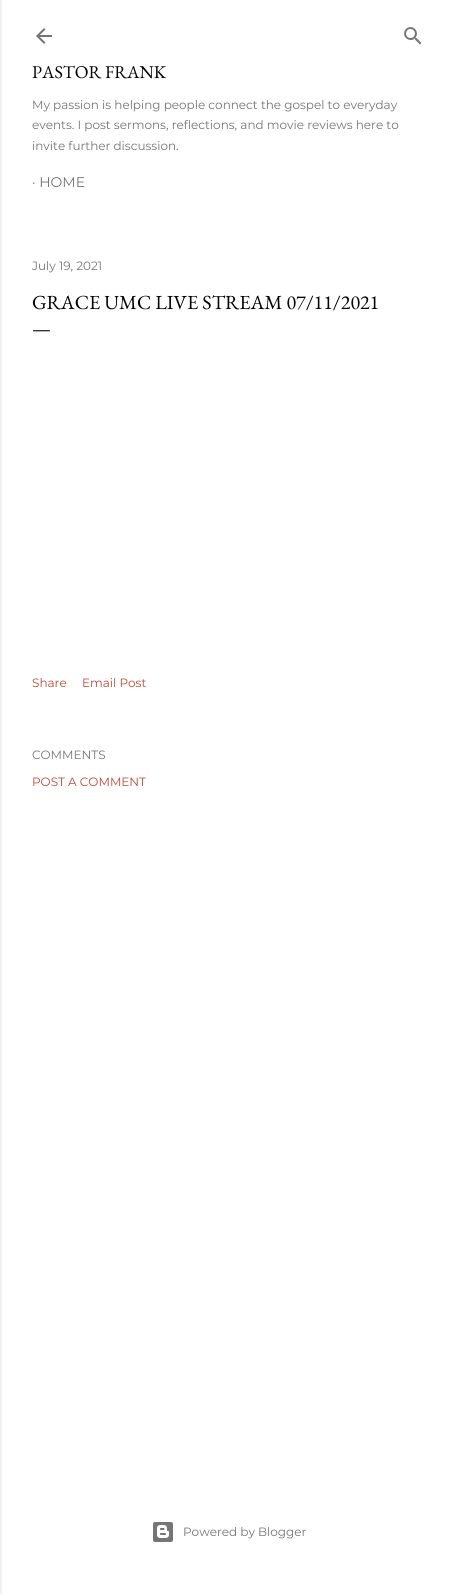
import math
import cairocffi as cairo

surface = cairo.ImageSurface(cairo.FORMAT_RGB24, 457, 1594)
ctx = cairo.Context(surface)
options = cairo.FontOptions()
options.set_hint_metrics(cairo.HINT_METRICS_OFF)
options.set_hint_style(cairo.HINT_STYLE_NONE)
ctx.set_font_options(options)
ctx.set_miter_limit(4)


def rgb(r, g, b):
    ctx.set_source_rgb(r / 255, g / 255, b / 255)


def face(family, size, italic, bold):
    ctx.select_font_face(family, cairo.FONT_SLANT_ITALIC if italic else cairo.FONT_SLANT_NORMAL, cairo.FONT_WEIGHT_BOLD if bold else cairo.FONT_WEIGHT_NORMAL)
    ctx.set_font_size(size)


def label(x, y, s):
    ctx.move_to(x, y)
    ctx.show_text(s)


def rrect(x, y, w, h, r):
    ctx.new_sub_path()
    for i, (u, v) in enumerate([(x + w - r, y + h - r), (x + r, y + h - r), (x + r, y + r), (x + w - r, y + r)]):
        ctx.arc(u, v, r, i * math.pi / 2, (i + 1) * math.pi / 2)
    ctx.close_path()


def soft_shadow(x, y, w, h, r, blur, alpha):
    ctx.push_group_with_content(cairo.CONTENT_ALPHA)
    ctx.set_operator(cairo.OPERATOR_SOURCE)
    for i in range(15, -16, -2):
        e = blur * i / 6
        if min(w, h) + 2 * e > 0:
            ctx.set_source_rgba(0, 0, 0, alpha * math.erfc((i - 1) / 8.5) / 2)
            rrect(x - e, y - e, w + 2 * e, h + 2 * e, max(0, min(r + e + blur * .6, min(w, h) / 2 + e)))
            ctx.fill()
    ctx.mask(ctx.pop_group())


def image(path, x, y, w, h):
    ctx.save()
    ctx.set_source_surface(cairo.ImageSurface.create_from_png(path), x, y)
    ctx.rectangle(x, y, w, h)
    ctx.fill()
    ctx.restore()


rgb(255, 255, 255)
ctx.paint()
rgb(0, 0, 0)
soft_shadow(-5, 0, 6, 1594, 0, 1.5, 0.1)
image('image0.png', 36, 28, 16, 16)
image('image1.png', 404, 27, 18, 18)
face('EB Garamond', 18, 0, 0)
rgb(0, 0, 0)
label(32, 78, 'PASTOR FRANK')
face('Montserrat', 12, 0, 0)
rgb(117, 117, 117)
label(32, 109, 'My passion is helping people connect the gospel to everyday')
label(32, 129, 'events. I post sermons, reflections, and movie reviews here to')
label(32, 150, 'invite further discussion.')
face('Montserrat', 14, 0, 0)
label(32, 187, '· HOME')
face('Montserrat', 12, 0, 0)
label(32, 270, 'July 19, 2021')
face('EB Garamond', 20, 0, 0)
rgb(0, 0, 0)
label(32, 309, 'GRACE UMC LIVE STREAM 07/11/2021')
label(32, 335, '—')
face('Montserrat', 12, 0, 0)
rgb(190, 71, 55)
label(32, 687, 'Share')
label(82, 687, 'Email Post')
rgb(117, 117, 117)
label(32, 759, 'COMMENTS')
rgb(190, 71, 55)
label(32, 786, 'POST A COMMENT')
image('image2.png', 153, 1522, 20, 20)
rgb(117, 117, 117)
label(183, 1536, 'Powered by Blogger')
surface.write_to_png('render.png')
